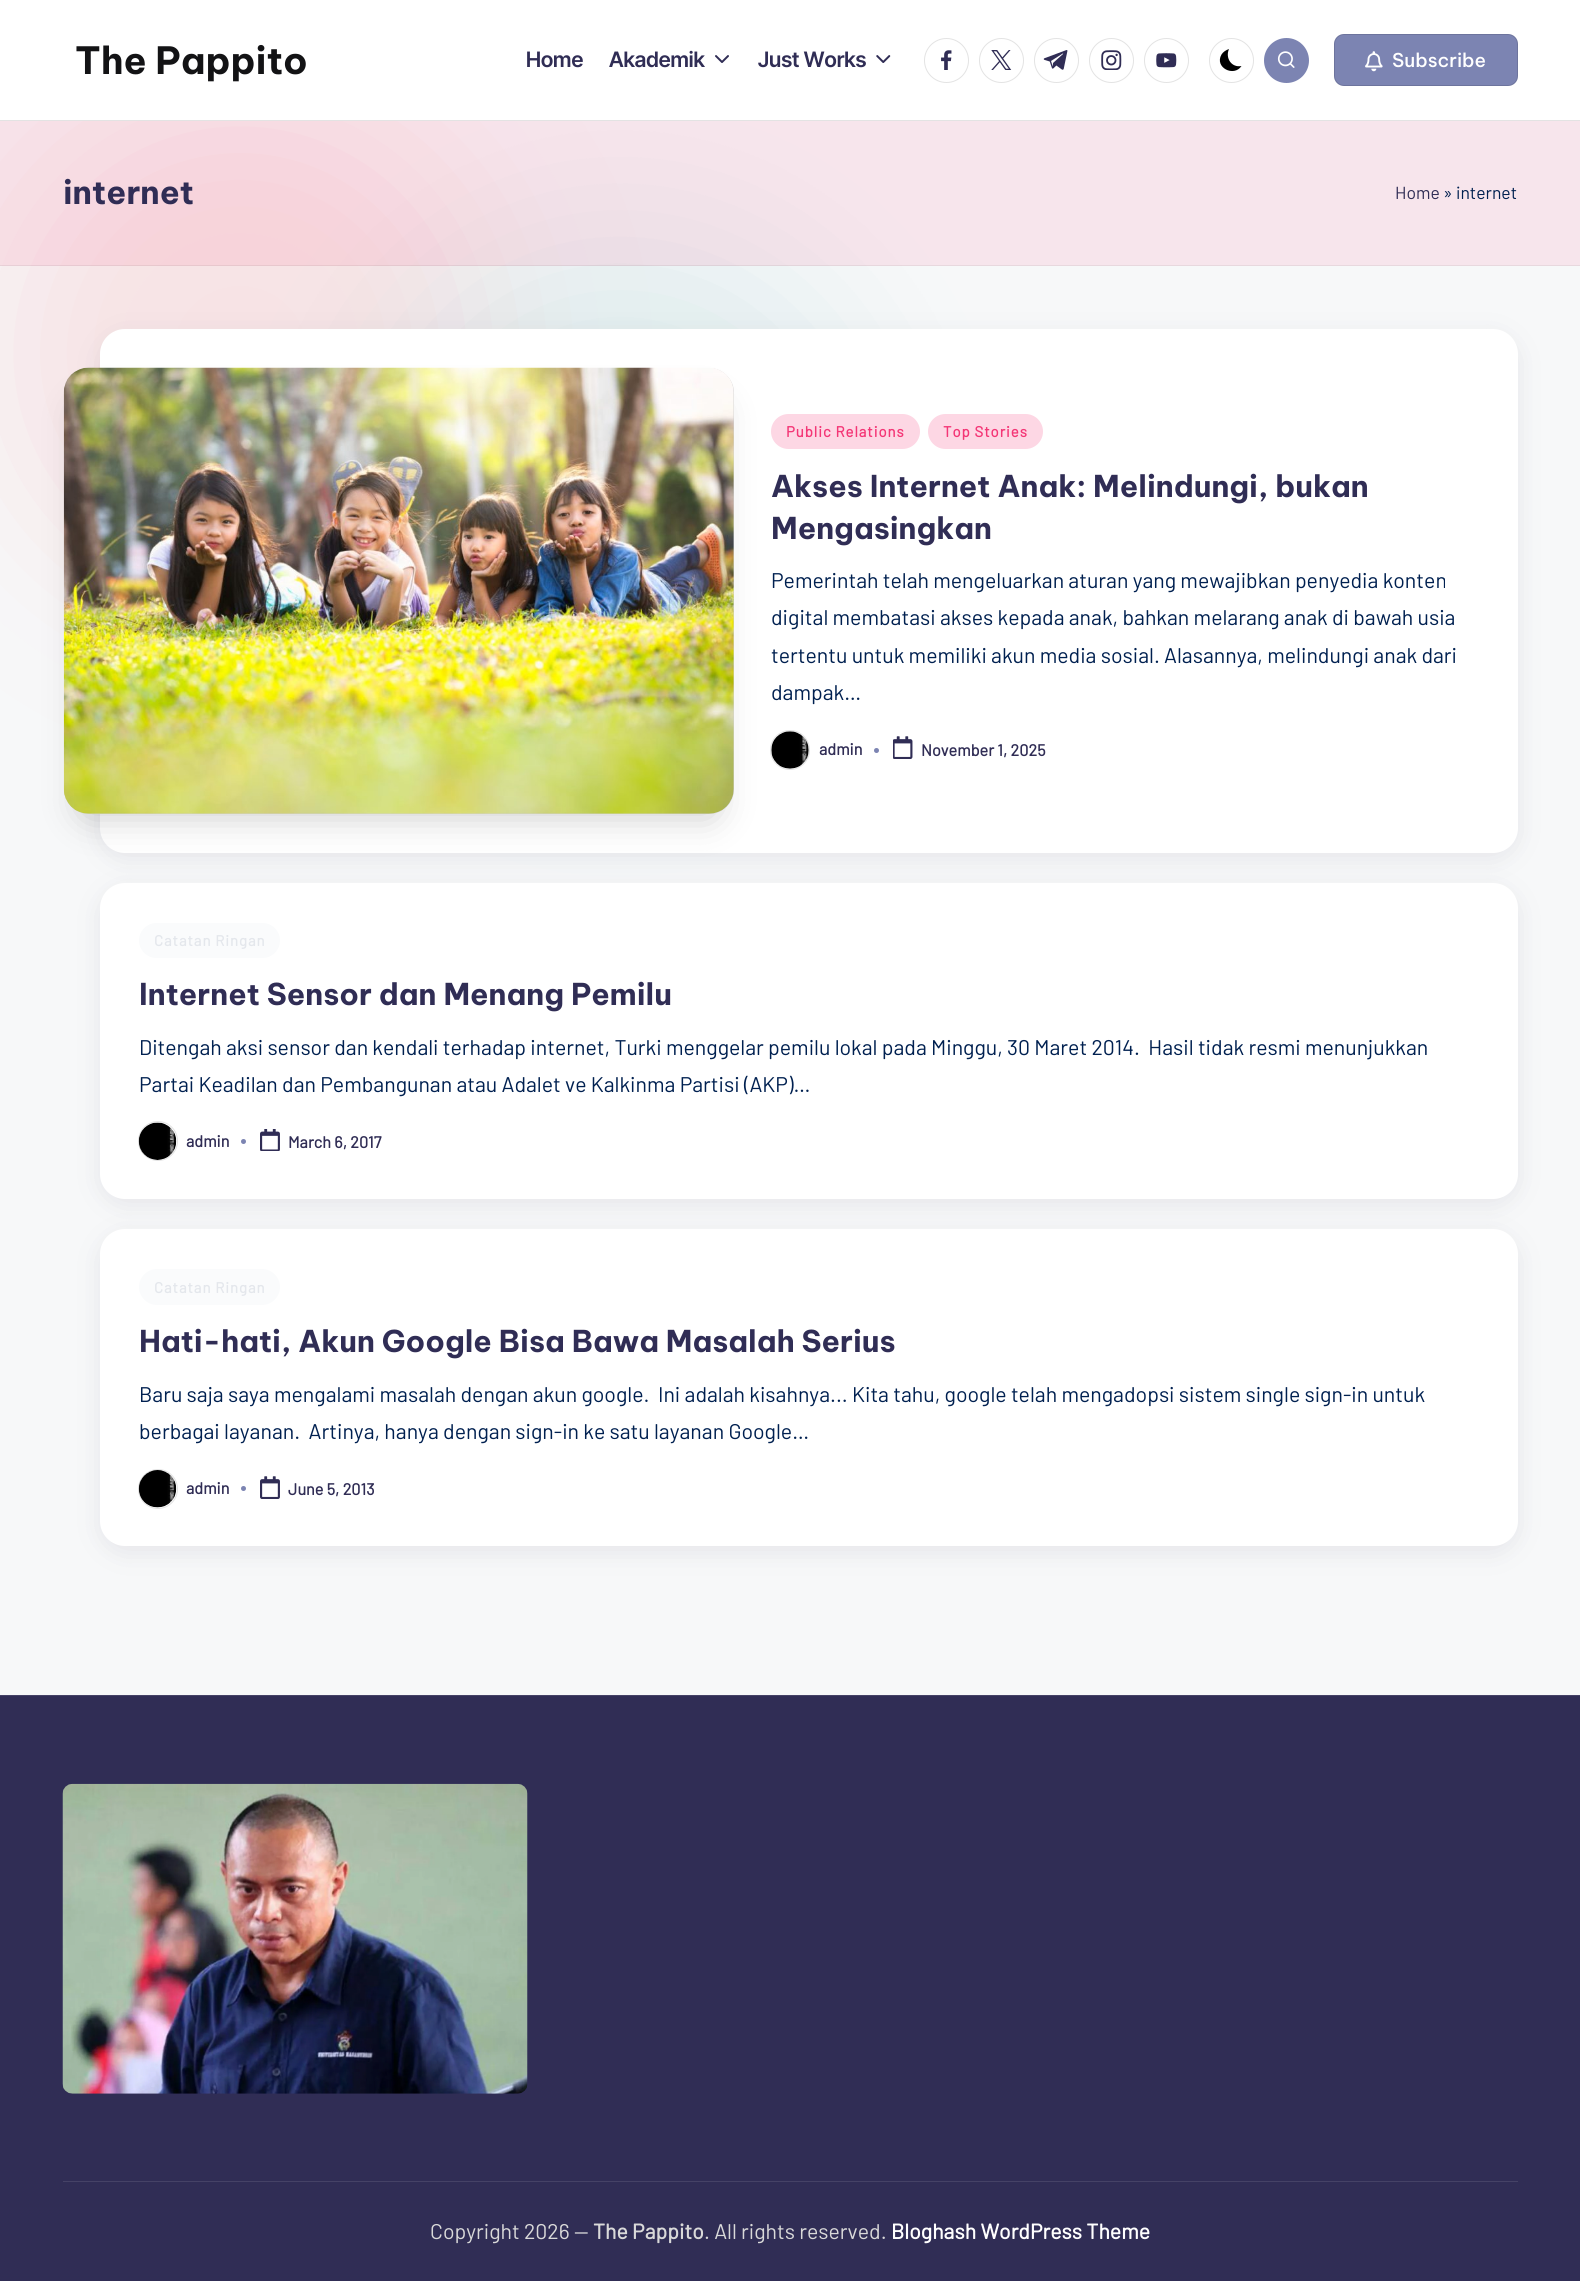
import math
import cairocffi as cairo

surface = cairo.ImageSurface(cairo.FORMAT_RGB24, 1580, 2281)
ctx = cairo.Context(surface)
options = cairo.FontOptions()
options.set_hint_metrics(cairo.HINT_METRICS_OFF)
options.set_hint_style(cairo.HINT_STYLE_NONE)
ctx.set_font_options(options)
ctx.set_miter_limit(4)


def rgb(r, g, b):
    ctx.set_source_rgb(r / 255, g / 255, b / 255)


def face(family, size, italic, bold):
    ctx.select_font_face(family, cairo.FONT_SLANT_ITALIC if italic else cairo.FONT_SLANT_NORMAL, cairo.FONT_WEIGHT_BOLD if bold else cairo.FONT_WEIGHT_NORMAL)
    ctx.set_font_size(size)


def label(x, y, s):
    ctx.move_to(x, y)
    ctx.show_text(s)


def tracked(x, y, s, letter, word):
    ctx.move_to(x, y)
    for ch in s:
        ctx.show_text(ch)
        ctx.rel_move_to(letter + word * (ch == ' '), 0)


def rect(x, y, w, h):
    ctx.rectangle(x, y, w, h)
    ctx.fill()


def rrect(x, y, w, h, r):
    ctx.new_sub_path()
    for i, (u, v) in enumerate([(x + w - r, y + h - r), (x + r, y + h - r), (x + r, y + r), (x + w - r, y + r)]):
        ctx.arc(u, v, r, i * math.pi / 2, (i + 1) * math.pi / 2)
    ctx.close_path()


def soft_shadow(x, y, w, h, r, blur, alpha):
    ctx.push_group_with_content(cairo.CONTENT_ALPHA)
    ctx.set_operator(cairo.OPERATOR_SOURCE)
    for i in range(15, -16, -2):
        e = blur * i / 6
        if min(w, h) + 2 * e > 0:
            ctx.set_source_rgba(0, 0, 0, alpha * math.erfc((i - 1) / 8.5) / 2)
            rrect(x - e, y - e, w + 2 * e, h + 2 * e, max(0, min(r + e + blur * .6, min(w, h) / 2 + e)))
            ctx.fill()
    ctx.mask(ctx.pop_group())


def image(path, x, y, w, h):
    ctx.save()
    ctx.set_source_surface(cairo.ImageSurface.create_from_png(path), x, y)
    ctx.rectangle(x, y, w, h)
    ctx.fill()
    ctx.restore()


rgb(247, 248, 249)
ctx.paint()
rgb(247, 227, 229)
soft_shadow(0, 113, 480, 480, 240, 80, 1)
rgb(4, 134, 139)
soft_shadow(380, 250, 480, 480, 240, 80, 0.1)
rgb(255, 255, 255)
rect(0, 0, 1580, 120)
rgb(227, 227, 227)
rect(0, 120, 1580, 1)
face('Be Vietnam Pro', 37.5, 0, 1)
rgb(19, 19, 21)
label(75, 74, 'The Pappito')
face('Inter Tight SemiBold', 21.25, 0, 0)
rgb(48, 45, 85)
label(526, 67, 'Home')
label(609, 67, 'Akademik')
image('image0.png', 715, 55, 14, 8)
label(758, 67, 'Just Works')
image('image1.png', 876, 55, 15, 8)
ctx.arc(946.5, 60.5, 22, 0, 2 * math.pi)
rgb(227, 227, 227)
ctx.set_line_width(1)
ctx.stroke()
image('image2.png', 941, 50, 11, 20)
ctx.arc(1001.5, 60.5, 22, 0, 2 * math.pi)
ctx.stroke()
image('image3.png', 991, 50, 21, 20)
ctx.arc(1056.5, 60.5, 22, 0, 2 * math.pi)
ctx.stroke()
image('image4.png', 1043, 50, 25, 20)
ctx.arc(1111.5, 60.5, 22, 0, 2 * math.pi)
ctx.stroke()
image('image5.png', 1101, 50, 21, 20)
ctx.arc(1166.5, 60.5, 22, 0, 2 * math.pi)
ctx.stroke()
image('image6.png', 1156, 53, 21, 15)
ctx.arc(1231.5, 60.5, 22, 0, 2 * math.pi)
ctx.stroke()
rgb(0, 0, 0)
ctx.new_path()
ctx.move_to(1241.5, 66)
ctx.curve_to(1231.5, 68, 1225, 58, 1229, 49)
ctx.curve_to(1226, 50, 1223, 52, 1221.5, 54.5)
ctx.curve_to(1214, 67.5, 1234, 77.5, 1241.5, 66)
ctx.close_path()
ctx.fill()
rgb(124, 132, 178)
ctx.arc(1286.5, 60.5, 22.5, 0, 2 * math.pi)
ctx.fill()
image('image7.png', 1277, 51, 18, 17)
rrect(1334, 34, 184, 52, 10)
ctx.fill()
rrect(1334.5, 34.5, 183, 51, 9.5)
ctx.set_source_rgba(0, 0, 0, 0.12)
ctx.stroke()
image('image8.png', 1365, 51, 18, 21)
face('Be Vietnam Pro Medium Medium', 19, 0, 0)
rgb(255, 255, 255)
label(1392, 67, 'Subscribe')
ctx.set_source_rgba(0.957, 0.212, 0.463, 0.1)
rect(0, 121, 1580, 145)
ctx.set_source_rgba(0, 0, 0, 0.06)
rect(0, 265, 1580, 1)
face('Be Vietnam Pro', 32.5, 0, 1)
rgb(48, 45, 85)
label(63, 204, 'internet')
face('Barlow', 17.5, 0, 0)
label(1395, 199, 'Home')
rgb(0, 32, 80)
label(1443, 199, '» internet')
rgb(69, 67, 96)
soft_shadow(100, 335, 1418, 524, 25, 12.5, 0.1)
rgb(255, 255, 255)
rrect(100, 329, 1418, 524, 25)
ctx.fill()
rgb(253, 215, 228)
rrect(771, 414, 149, 35, 17.5)
ctx.fill()
image('image10.png', 771, 731, 38, 38)
ctx.arc(790, 750, 19.5, 0, 2 * math.pi)
ctx.set_source_rgba(0.725, 0.725, 0.725, 0.4)
ctx.stroke()
rgb(0, 0, 0)
soft_shadow(79, 403, 640, 416, 10, 17.5, 0.18)
rgb(209, 209, 209)
rrect(64, 368, 670, 446, 25)
ctx.fill()
image('image9.png', 63, 367, 671, 447)
face('Barlow', 15, 0, 1)
rgb(244, 54, 118)
tracked(786, 437, 'Public Relations', 0.9, 0)
rgb(253, 215, 228)
rrect(928, 414, 115, 35, 17.5)
ctx.fill()
rgb(244, 54, 118)
tracked(943, 437, 'Top Stories', 0.9, 0)
face('Be Vietnam Pro', 30, 0, 1)
rgb(48, 45, 85)
label(771, 497, 'Akses Internet Anak: Melindungi, bukan')
label(771, 539, 'Mengasingkan')
face('Barlow', 21.25, 0, 0)
rgb(0, 32, 80)
label(771, 588, 'Pemerintah telah mengeluarkan aturan yang mewajibkan penyedia konten')
label(771, 625, 'digital membatasi akses kepada anak, bahkan melarang anak di bawah usia')
label(771, 663, 'tertentu untuk memiliki akun media sosial. Alasannya, melindungi anak dari')
label(771, 700, 'dampak…')
face('Barlow', 16.25, 0, 1)
rgb(48, 45, 85)
label(819, 755, 'admin')
rgb(124, 132, 178)
ctx.new_path()
ctx.arc(876.5, 750.5, 2.5, 0, 2 * math.pi)
ctx.fill()
image('image11.png', 893, 736, 20, 23)
rgb(48, 45, 85)
label(921, 756, 'November 1, 2025')
rgb(69, 67, 96)
soft_shadow(100, 889, 1418, 316, 25, 12.5, 0.1)
rgb(255, 255, 255)
rrect(100, 883, 1418, 316, 25)
ctx.fill()
rgb(250, 251, 252)
rrect(139, 923, 141, 35, 17.5)
ctx.fill()
face('Barlow', 15, 0, 1)
rgb(228, 231, 236)
tracked(154, 946, 'Catatan Ringan', 0.9, 0)
face('Be Vietnam Pro', 30, 0, 1)
rgb(48, 45, 85)
label(139, 1005, 'Internet Sensor dan Menang Pemilu')
face('Barlow', 21.25, 0, 0)
rgb(0, 32, 80)
label(139, 1055, 'Ditengah aksi sensor dan kendali terhadap internet, Turki menggelar pemilu lokal pada Minggu, 30 Maret 2014.  Hasil tidak resmi menunjukkan')
label(139, 1092, 'Partai Keadilan dan Pembangunan atau Adalet ve Kalkinma Partisi (AKP)…')
image('image12.png', 138, 1122, 39, 38)
ctx.arc(158, 1141, 19.5, 0, 2 * math.pi)
ctx.set_source_rgba(0.725, 0.725, 0.725, 0.4)
ctx.stroke()
face('Barlow', 16.25, 0, 1)
rgb(48, 45, 85)
label(186, 1147, 'admin')
rgb(124, 132, 178)
ctx.new_path()
ctx.arc(243.5, 1141.5, 2.5, 0, 2 * math.pi)
ctx.fill()
image('image13.png', 260, 1129, 20, 22)
rgb(48, 45, 85)
label(288, 1148, 'March 6, 2017')
rgb(69, 67, 96)
soft_shadow(100, 1235, 1418, 318, 25, 12.5, 0.1)
rgb(255, 255, 255)
rrect(100, 1229, 1418, 317, 25)
ctx.fill()
rgb(250, 251, 252)
rrect(139, 1269, 141, 36, 18)
ctx.fill()
face('Barlow', 15, 0, 1)
rgb(228, 231, 236)
tracked(154, 1293, 'Catatan Ringan', 0.9, 0)
face('Be Vietnam Pro', 30, 0, 1)
rgb(48, 45, 85)
label(139, 1352, 'Hati-hati, Akun Google Bisa Bawa Masalah Serius')
face('Barlow', 21.25, 0, 0)
rgb(0, 32, 80)
label(139, 1402, 'Baru saja saya mengalami masalah dengan akun google.  Ini adalah kisahnya... Kita tahu, google telah mengadopsi sistem single sign-in untuk')
label(139, 1439, 'berbagai layanan.  Artinya, hanya dengan sign-in ke satu layanan Google…')
image('image14.png', 138, 1470, 39, 38)
ctx.arc(158, 1489, 19.5, 0, 2 * math.pi)
ctx.set_source_rgba(0.725, 0.725, 0.725, 0.4)
ctx.stroke()
face('Barlow', 16.25, 0, 1)
rgb(48, 45, 85)
label(186, 1494, 'admin')
rgb(124, 132, 178)
ctx.new_path()
ctx.arc(243.5, 1488.5, 2.5, 0, 2 * math.pi)
ctx.fill()
image('image15.png', 260, 1476, 20, 23)
rgb(48, 45, 85)
label(288, 1495, 'June 5, 2013')
rect(0, 1696, 1580, 585)
rgb(69, 66, 102)
rect(0, 1695, 1580, 1)
image('image16.png', 62, 1783, 466, 311)
rect(63, 2181, 1455, 1)
face('Barlow', 21.25, 0, 0)
rgb(217, 217, 217)
label(430, 2239, 'Copyright 2026 —')
face('Barlow', 21.25, 0, 1)
label(593, 2239, 'The Pappito')
face('Barlow', 21.25, 0, 0)
label(704, 2239, '. All rights reserved.')
face('Barlow', 21.25, 0, 1)
rgb(255, 255, 255)
label(891, 2239, 'Bloghash WordPress Theme')
surface.write_to_png('render.png')
